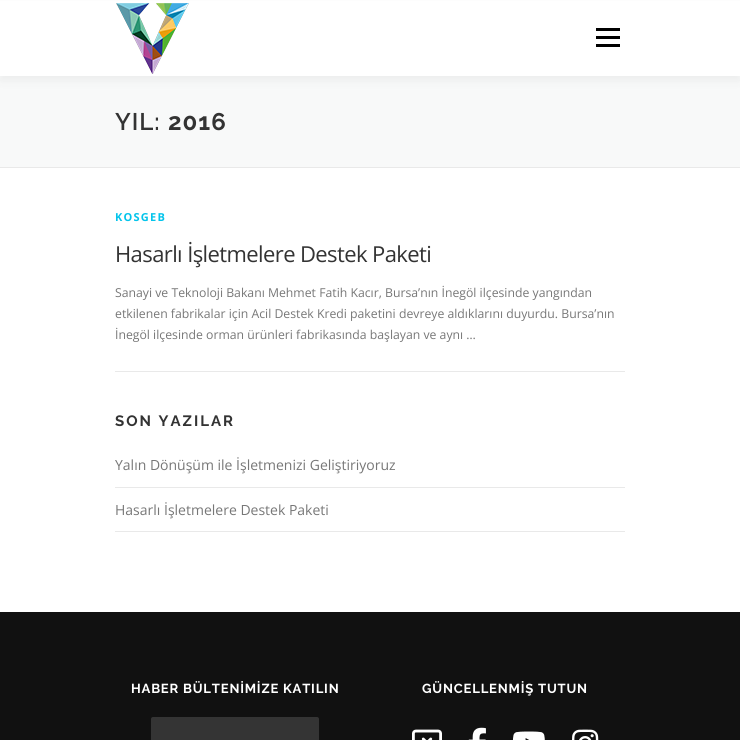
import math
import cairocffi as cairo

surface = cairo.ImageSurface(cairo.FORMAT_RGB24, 740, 740)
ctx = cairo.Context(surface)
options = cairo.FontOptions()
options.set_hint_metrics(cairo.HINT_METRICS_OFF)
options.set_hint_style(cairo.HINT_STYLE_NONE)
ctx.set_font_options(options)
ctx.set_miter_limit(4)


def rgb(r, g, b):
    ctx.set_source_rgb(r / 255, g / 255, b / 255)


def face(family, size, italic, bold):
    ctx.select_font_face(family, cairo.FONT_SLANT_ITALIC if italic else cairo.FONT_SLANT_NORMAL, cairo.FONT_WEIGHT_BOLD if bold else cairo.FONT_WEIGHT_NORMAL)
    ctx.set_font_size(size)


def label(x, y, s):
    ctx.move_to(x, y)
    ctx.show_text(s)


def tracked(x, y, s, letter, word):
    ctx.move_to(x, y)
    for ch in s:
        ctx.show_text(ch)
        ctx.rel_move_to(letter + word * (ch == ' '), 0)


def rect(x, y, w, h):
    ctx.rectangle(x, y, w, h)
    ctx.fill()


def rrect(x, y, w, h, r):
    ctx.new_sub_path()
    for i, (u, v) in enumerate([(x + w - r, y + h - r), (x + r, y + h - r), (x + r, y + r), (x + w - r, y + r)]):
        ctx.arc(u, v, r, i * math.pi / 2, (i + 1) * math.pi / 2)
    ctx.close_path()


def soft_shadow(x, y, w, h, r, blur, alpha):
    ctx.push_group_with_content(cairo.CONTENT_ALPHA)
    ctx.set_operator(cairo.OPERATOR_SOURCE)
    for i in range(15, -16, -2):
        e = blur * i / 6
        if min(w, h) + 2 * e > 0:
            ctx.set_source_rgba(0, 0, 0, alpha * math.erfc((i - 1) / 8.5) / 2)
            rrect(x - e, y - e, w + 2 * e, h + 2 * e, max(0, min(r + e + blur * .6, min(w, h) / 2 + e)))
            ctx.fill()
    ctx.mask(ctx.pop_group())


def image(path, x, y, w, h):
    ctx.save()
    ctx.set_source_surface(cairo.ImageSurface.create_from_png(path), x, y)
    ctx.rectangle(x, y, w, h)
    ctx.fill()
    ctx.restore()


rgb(255, 255, 255)
ctx.paint()
rgb(248, 249, 249)
rect(0, 76, 740, 91)
rgb(50, 50, 50)
soft_shadow(0, 5, 740, 76, 0, 5, 0.06)
rgb(255, 255, 255)
rect(0, 1, 740, 75)
image('image0.png', 116, 3, 73, 71)
rgb(0, 0, 0)
rect(596, 36, 24, 3)
rect(596, 28, 24, 3)
rect(596, 44, 24, 3)
rgb(233, 233, 233)
rect(0, 167, 740, 1)
face('Raleway SemiBold', 24, 0, 0)
rgb(51, 51, 51)
tracked(115, 130, 'YIL:', 1, 0)
face('Raleway', 24, 0, 1)
tracked(168, 130, '2016', 1, 0)
rgb(233, 233, 233)
rect(115, 371, 510, 1)
face('Open Sans', 11, 0, 1)
rgb(3, 196, 235)
tracked(115, 221, 'KOSGEB', 1.25, 0)
face('Open Sans', 22, 0, 0)
rgb(51, 51, 51)
tracked(115, 262, 'Hasarlı İşletmelere Destek Paketi', -0.6, 0)
face('Open Sans', 12.25, 0, 0)
rgb(119, 119, 119)
label(115, 297, 'Sanayi ve Teknoloji Bakanı Mehmet Fatih Kacır, Bursa’nın İnegöl ilçesinde yangından')
label(115, 318, 'etkilenen fabrikalar için Acil Destek Kredi paketini devreye aldıklarını duyurdu. Bursa’nın')
label(115, 339, 'İnegöl ilçesinde orman ürünleri fabrikasında başlayan ve aynı …')
face('Raleway', 15, 0, 1)
rgb(51, 51, 51)
tracked(115, 426, 'SON YAZILAR', 2, 0)
rgb(233, 233, 233)
rect(115, 487, 510, 1)
face('Open Sans', 14, 0, 0)
rgb(119, 119, 119)
label(115, 470, 'Yalın Dönüşüm ile İşletmenizi Geliştiriyoruz')
rgb(233, 233, 233)
rect(115, 531, 510, 1)
rgb(119, 119, 119)
label(115, 515, 'Hasarlı İşletmelere Destek Paketi')
rgb(17, 17, 17)
rect(0, 612, 740, 128)
face('Raleway', 13.1, 0, 1)
rgb(255, 255, 255)
tracked(131, 693, 'HABER BÜLTENİMİZE KATILIN', 0.8, 0)
rgb(52, 52, 52)
rrect(151, 717, 168, 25, 2)
ctx.fill()
rgb(255, 255, 255)
tracked(422, 693, 'GÜNCELLENMİŞ TUTUN', 0.8, 0)
image('image1.png', 412, 729, 30, 11)
image('image2.png', 468, 727, 18, 13)
image('image3.png', 512, 731, 33, 9)
image('image4.png', 572, 729, 27, 11)
surface.write_to_png('render.png')
